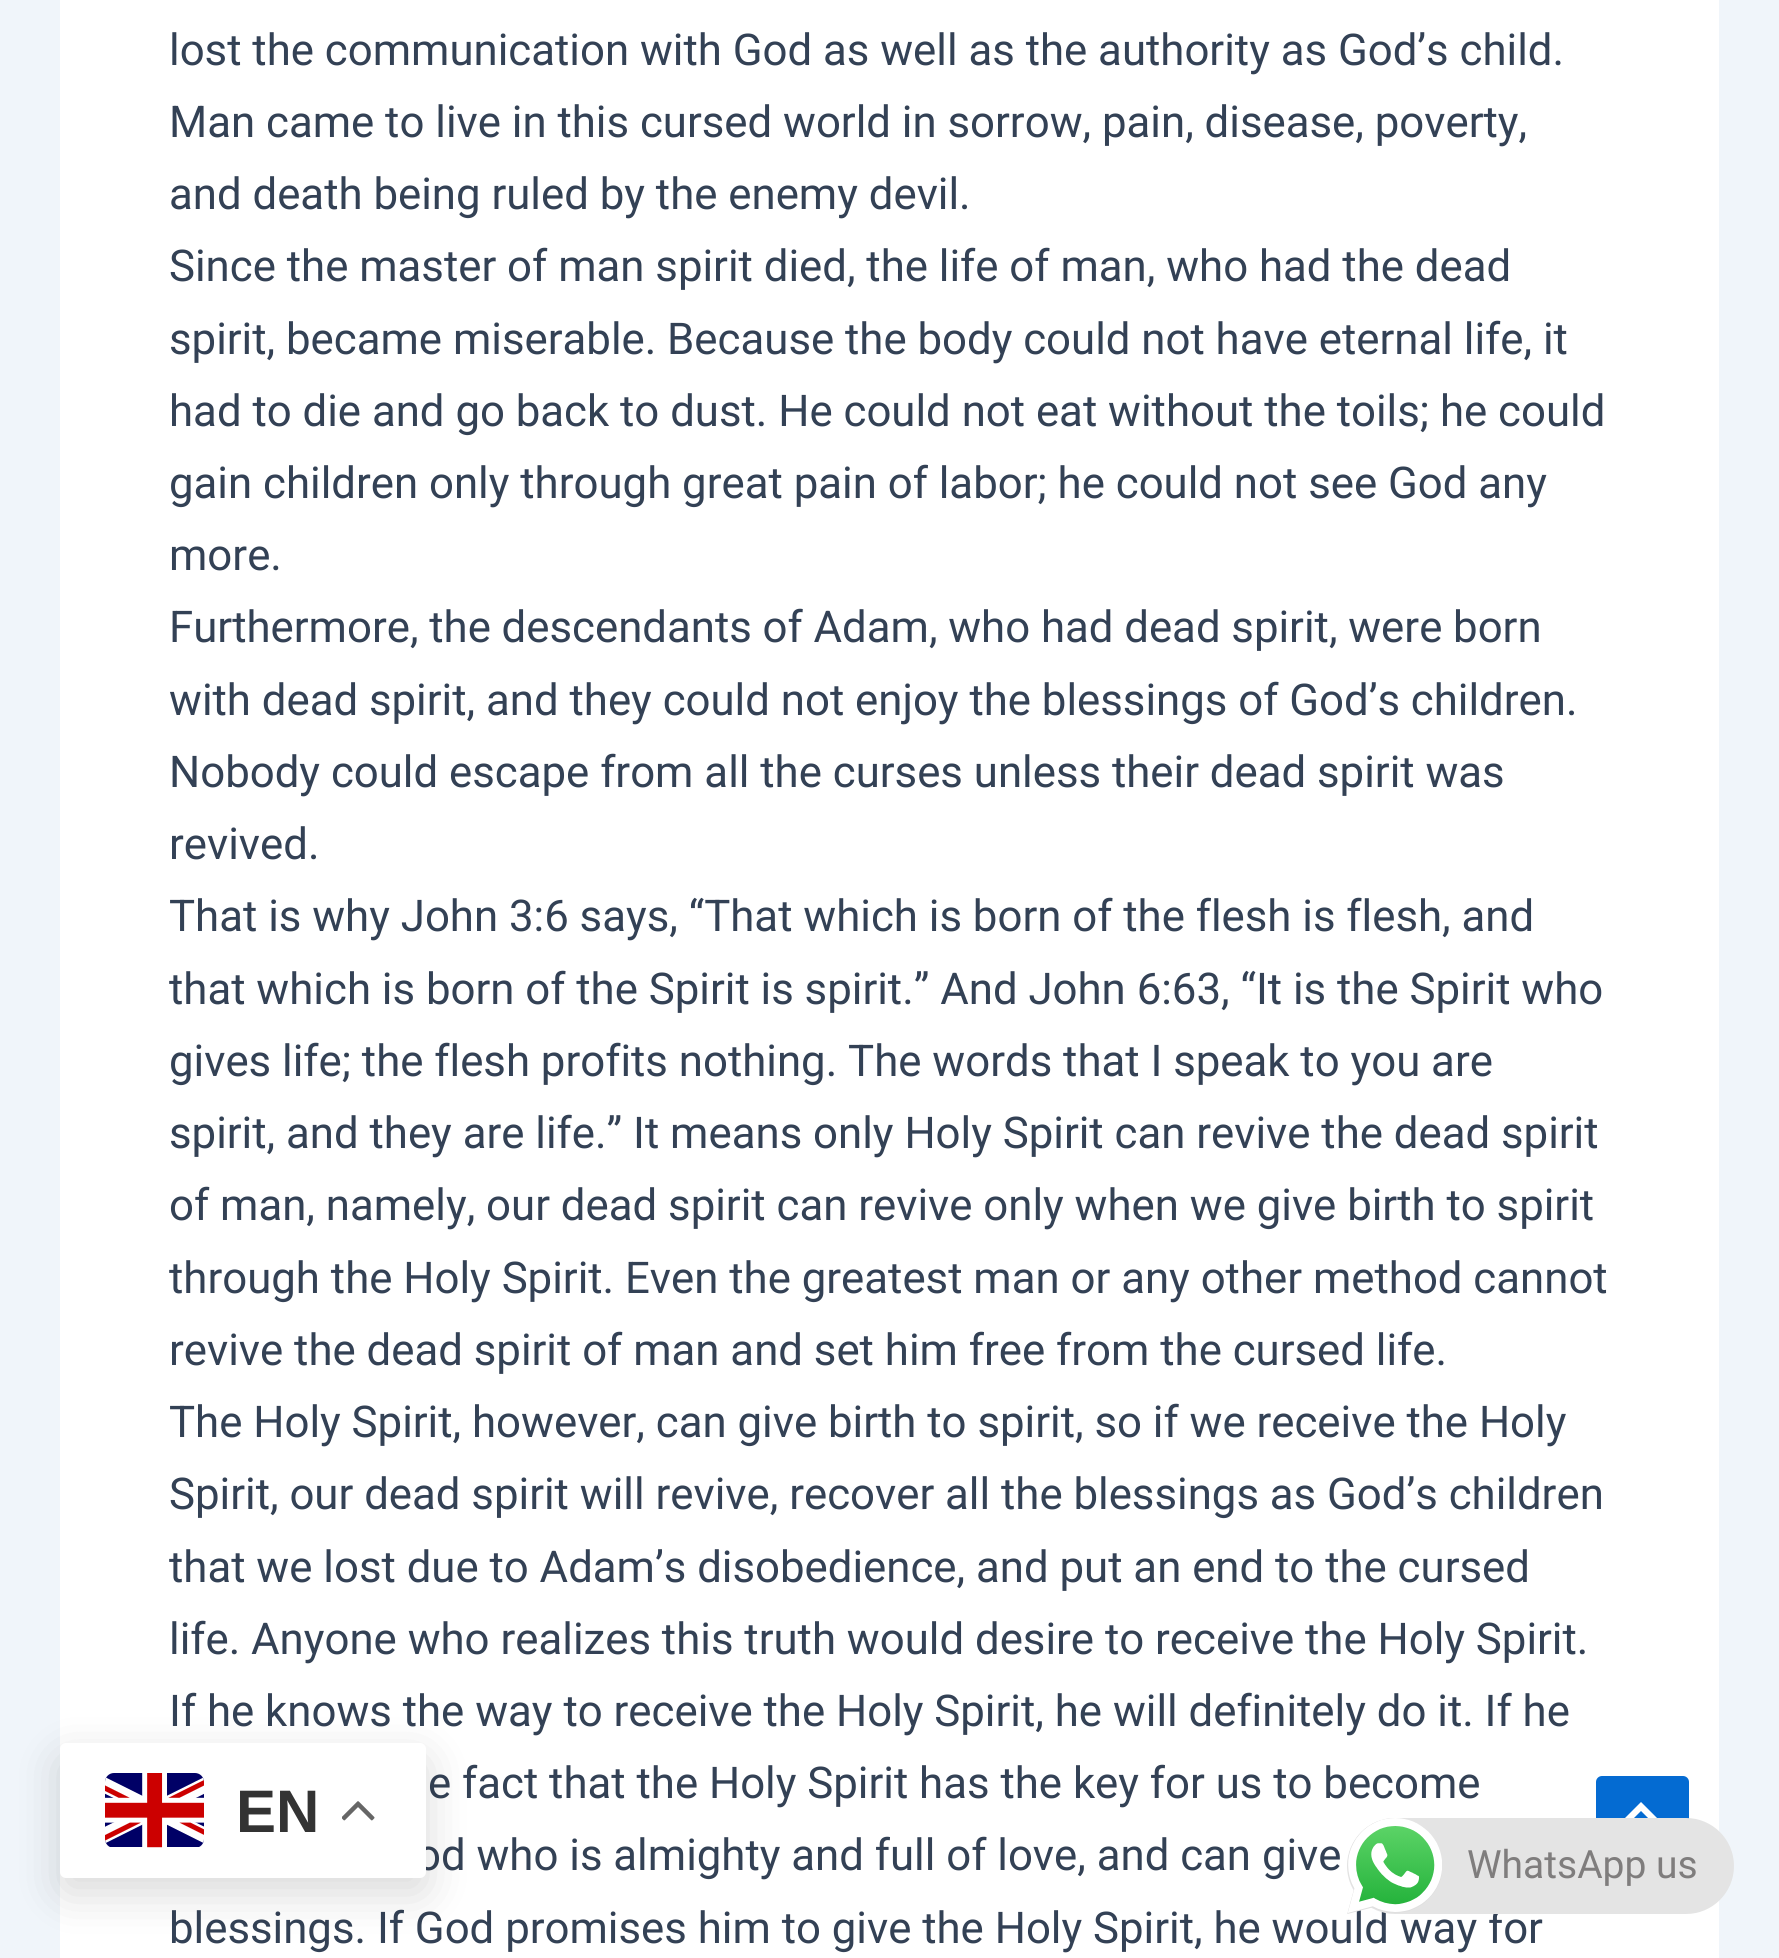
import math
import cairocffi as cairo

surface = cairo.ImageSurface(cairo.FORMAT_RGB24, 1779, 1958)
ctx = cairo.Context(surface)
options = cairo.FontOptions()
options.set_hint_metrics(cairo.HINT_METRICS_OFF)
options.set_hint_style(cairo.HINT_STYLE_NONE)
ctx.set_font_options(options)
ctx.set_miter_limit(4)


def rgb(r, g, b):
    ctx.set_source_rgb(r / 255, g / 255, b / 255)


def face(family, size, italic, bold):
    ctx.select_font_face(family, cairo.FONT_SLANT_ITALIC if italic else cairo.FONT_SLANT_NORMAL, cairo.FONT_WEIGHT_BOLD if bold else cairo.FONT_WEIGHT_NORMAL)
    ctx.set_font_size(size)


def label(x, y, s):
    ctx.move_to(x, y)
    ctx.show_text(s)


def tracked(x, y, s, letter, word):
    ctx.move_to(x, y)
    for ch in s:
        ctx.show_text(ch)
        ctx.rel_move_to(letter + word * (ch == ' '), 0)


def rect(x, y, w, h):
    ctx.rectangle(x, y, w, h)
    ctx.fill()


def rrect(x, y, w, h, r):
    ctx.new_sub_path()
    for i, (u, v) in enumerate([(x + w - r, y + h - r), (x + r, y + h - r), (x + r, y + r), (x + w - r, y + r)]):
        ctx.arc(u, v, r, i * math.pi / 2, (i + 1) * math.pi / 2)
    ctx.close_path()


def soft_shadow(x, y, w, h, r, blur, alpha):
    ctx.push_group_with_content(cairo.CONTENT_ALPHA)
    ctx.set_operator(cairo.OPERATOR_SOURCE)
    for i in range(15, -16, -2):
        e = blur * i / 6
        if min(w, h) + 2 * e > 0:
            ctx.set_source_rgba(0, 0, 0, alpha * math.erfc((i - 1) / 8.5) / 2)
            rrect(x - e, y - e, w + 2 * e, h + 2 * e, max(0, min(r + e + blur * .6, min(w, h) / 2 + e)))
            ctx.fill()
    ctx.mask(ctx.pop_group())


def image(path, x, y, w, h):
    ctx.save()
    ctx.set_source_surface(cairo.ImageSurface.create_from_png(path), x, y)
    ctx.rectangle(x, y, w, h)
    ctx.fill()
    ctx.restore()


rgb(240, 245, 250)
ctx.paint()
rgb(255, 255, 255)
rect(60, 0, 1659, 1958)
face('Roboto', 43.75, 0, 0)
rgb(51, 65, 85)
label(169, 65, 'lost the communication with God as well as the authority as God’s child.')
label(169, 137, 'Man came to live in this cursed world in sorrow, pain, disease, poverty,')
label(169, 209, 'and death being ruled by the enemy devil.')
label(169, 281, 'Since the master of man spirit died, the life of man, who had the dead')
label(169, 354, 'spirit, became miserable. Because the body could not have eternal life, it')
label(169, 426, 'had to die and go back to dust. He could not eat without the toils; he could')
label(169, 498, 'gain children only through great pain of labor; he could not see God any')
label(169, 570, 'more.')
tracked(169, 642, 'Furthermore, the descendants of Adam, who had dead spirit, were born', 0, -0.1)
label(169, 715, 'with dead spirit, and they could not enjoy the blessings of God’s children.')
label(169, 787, 'Nobody could escape from all the curses unless their dead spirit was')
label(169, 859, 'revived.')
label(169, 931, 'That is why John 3:6 says, “That which is born of the flesh is flesh, and')
label(169, 1004, 'that which is born of the Spirit is spirit.” And John 6:63, “It is the Spirit who')
label(169, 1076, 'gives life; the flesh profits nothing. The words that I speak to you are')
label(169, 1148, 'spirit, and they are life.” It means only Holy Spirit can revive the dead spirit')
label(169, 1220, 'of man, namely, our dead spirit can revive only when we give birth to spirit')
label(169, 1293, 'through the Holy Spirit. Even the greatest man or any other method cannot')
label(169, 1365, 'revive the dead spirit of man and set him free from the cursed life.')
label(169, 1437, 'The Holy Spirit, however, can give birth to spirit, so if we receive the Holy')
label(169, 1509, 'Spirit, our dead spirit will revive, recover all the blessings as God’s children')
label(169, 1582, 'that we lost due to Adam’s disobedience, and put an end to the cursed')
label(169, 1654, 'life. Anyone who realizes this truth would desire to receive the Holy Spirit.')
label(169, 1726, 'If he knows the way to receive the Holy Spirit, he will definitely do it. If he')
label(428, 1798, 'e fact that the Holy Spirit has the key for us to become')
label(416, 1870, 'od who is almighty and full of love, and can give')
label(169, 1943, 'blessings. If God promises him to give the Holy Spirit, he would way for')
rgb(4, 107, 210)
rrect(1596, 1776, 93, 93, 6)
ctx.fill()
rgb(255, 255, 255)
ctx.new_path()
ctx.move_to(1663, 1824)
ctx.line_to(1641, 1802)
ctx.line_to(1619, 1824)
ctx.line_to(1624, 1828)
ctx.line_to(1641, 1811)
ctx.line_to(1658, 1828)
ctx.close_path()
ctx.fill()
rgb(0, 0, 0)
soft_shadow(60, 1758, 366, 135, 6, 22.5, 0.15)
rgb(255, 255, 255)
rrect(60, 1743, 366, 135, 6)
ctx.fill()
image('image0.png', 105, 1773, 99, 75)
face('Liberation Sans', 60, 0, 1)
rgb(51, 51, 51)
label(236, 1832, 'EN')
image('image1.png', 342, 1801, 33, 20)
rgb(228, 228, 228)
rrect(1347, 1818, 387, 96, 48)
ctx.fill()
image('image2.png', 1347, 1818, 95, 96)
face('Roboto', 39, 0, 0)
rgb(127, 125, 125)
label(1467, 1878, 'WhatsApp us')
surface.write_to_png('render.png')
